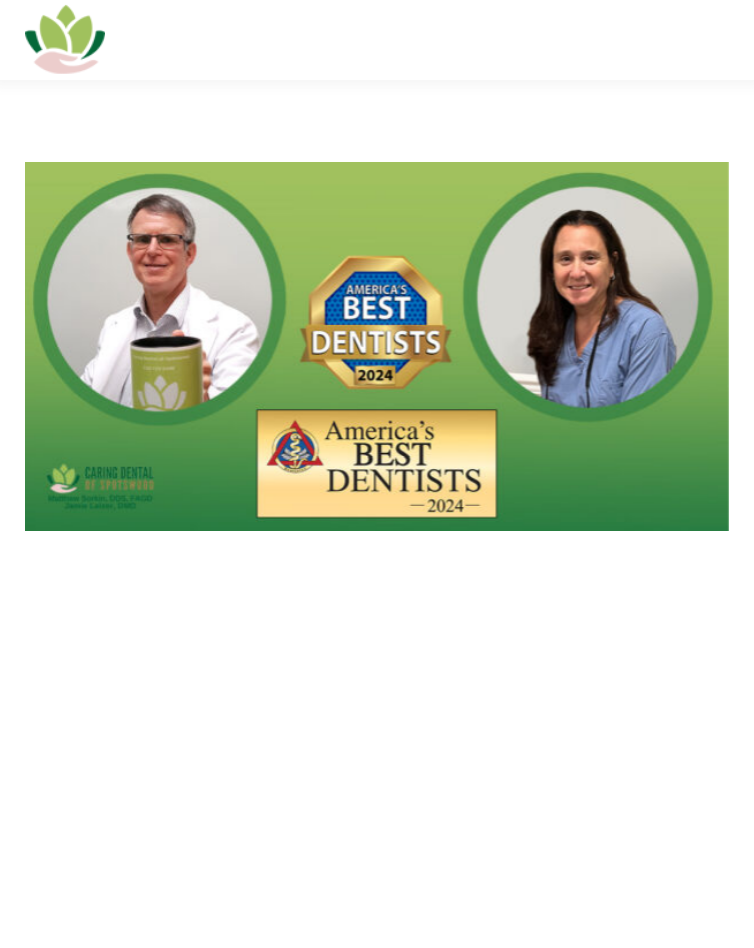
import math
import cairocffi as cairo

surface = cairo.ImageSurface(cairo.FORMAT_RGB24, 754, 948)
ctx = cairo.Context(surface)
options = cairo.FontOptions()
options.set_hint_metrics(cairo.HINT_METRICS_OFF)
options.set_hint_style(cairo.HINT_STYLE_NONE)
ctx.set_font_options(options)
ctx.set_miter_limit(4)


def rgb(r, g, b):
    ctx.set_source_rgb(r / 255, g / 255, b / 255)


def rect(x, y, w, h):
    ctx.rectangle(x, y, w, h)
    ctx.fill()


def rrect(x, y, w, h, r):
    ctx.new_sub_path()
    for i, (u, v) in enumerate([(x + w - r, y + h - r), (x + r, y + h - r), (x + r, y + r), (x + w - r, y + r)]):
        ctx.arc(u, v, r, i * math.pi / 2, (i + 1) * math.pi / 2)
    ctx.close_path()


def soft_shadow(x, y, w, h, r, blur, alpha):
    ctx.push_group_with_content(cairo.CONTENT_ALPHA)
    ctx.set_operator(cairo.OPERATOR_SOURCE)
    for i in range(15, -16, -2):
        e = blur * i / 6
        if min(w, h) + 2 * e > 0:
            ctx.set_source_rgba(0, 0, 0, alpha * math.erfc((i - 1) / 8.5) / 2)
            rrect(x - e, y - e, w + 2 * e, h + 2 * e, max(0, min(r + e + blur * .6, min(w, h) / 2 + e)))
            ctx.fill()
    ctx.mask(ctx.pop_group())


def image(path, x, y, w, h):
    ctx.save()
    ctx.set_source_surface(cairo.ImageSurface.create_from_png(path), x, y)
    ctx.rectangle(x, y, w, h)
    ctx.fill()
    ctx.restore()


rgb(255, 255, 255)
ctx.paint()
rgb(0, 0, 0)
soft_shadow(-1, -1, 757, 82, 0, 9.5, 0.07)
rgb(255, 255, 255)
rect(0, 0, 754, 80)
image('image0.png', 25, 4, 80, 70)
image('image1.png', 25, 162, 704, 369)
surface.write_to_png('render.png')
